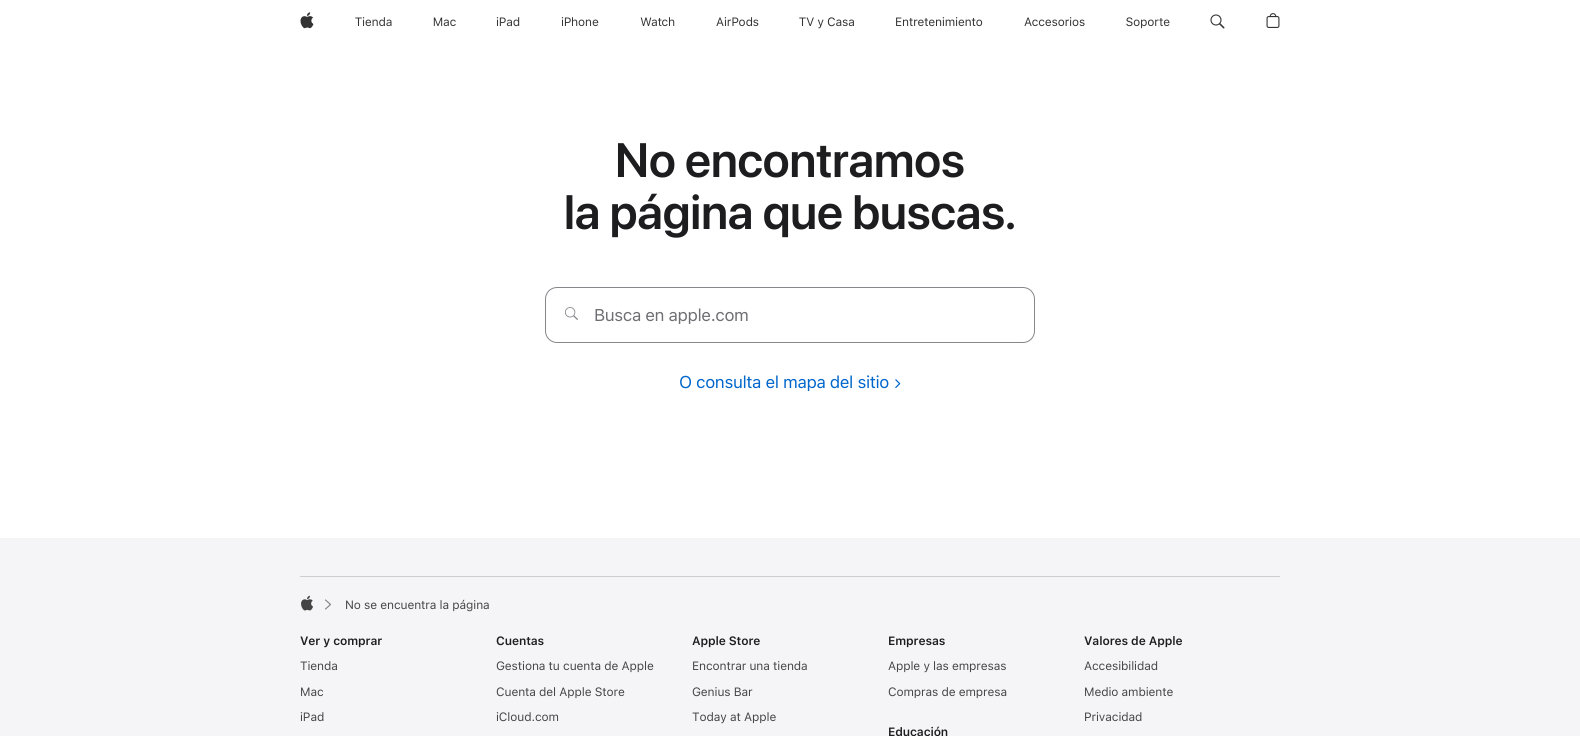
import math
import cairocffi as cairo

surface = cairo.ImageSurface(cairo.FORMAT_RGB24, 1580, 736)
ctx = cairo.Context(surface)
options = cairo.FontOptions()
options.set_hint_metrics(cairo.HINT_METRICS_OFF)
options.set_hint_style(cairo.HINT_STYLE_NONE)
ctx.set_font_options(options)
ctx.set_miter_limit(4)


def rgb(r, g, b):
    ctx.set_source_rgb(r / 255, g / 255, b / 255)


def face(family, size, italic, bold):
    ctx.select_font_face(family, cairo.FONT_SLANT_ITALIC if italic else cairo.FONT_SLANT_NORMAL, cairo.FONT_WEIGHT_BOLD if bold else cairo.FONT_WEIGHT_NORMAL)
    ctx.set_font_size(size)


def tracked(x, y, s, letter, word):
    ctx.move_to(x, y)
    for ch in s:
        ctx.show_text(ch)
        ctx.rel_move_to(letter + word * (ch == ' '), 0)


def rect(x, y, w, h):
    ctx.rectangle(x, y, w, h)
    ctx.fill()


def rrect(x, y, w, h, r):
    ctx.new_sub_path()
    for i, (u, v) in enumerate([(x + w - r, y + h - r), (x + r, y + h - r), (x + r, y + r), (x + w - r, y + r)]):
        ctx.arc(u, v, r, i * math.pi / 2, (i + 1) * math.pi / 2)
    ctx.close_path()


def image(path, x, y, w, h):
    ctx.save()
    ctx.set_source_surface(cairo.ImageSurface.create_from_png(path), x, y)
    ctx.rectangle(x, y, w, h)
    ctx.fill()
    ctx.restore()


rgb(255, 255, 255)
ctx.paint()
image('image0.png', 300, 12, 14, 17)
image('image1.png', 355, 17, 37, 10)
image('image2.png', 433, 17, 23, 10)
image('image3.png', 496, 17, 24, 10)
image('image4.png', 561, 17, 38, 10)
image('image5.png', 640, 17, 35, 10)
image('image6.png', 716, 17, 43, 10)
image('image7.png', 799, 17, 55, 12)
image('image8.png', 896, 17, 87, 10)
image('image9.png', 1024, 17, 61, 10)
image('image10.png', 1126, 17, 44, 12)
image('image11.png', 1210, 14, 15, 15)
image('image12.png', 1266, 13, 14, 15)
face('SF Pro Display SemiBold', 48, 0, 0)
rgb(29, 29, 31)
tracked(615, 177, 'No encontramos', -0.1, 0)
tracked(564, 229, 'la página que buscas.', -0.1, 0)
rrect(545.5, 287.5, 489, 55, 11.5)
rgb(134, 134, 139)
ctx.set_line_width(1)
ctx.stroke()
image('image13.png', 565, 307, 13, 13)
face('SF Pro Text', 17, 0, 0)
rgb(110, 110, 115)
tracked(594, 321, 'Busca en apple.com', -0.4, 0)
rgb(0, 102, 204)
tracked(679, 388, 'O consulta el mapa del sitio', -0.4, 0)
image('image14.png', 895, 379, 6, 9)
rgb(245, 245, 247)
rect(0, 538, 1580, 198)
rgb(206, 206, 207)
rect(300, 576, 980, 1)
image('image15.png', 301, 595, 12, 16)
ctx.new_path()
ctx.move_to(325.5, 600)
ctx.line_to(330.5, 604.5)
ctx.line_to(325.5, 609)
rgb(127, 127, 128)
ctx.set_line_width(1.1)
ctx.set_line_cap(cairo.LINE_CAP_ROUND)
ctx.set_line_join(cairo.LINE_JOIN_ROUND)
ctx.stroke()
face('SF Pro Text', 12, 0, 0)
rgb(69, 69, 69)
tracked(345, 609, 'No se encuentra la página', -0.1, 0)
face('SF Pro Text SemiBold', 12, 0, 0)
rgb(29, 29, 31)
tracked(300, 645, 'Ver y comprar', -0.1, 0)
face('SF Pro Text', 12, 0, 0)
rgb(69, 69, 69)
tracked(300, 670, 'Tienda', -0.1, 0)
tracked(300, 696, 'Mac', -0.1, 0)
tracked(300, 721, 'iPad', -0.1, 0)
face('SF Pro Text SemiBold', 12, 0, 0)
rgb(29, 29, 31)
tracked(496, 645, 'Cuentas', -0.1, 0)
face('SF Pro Text', 12, 0, 0)
rgb(69, 69, 69)
tracked(496, 670, 'Gestiona tu cuenta de Apple', -0.1, 0)
tracked(496, 696, 'Cuenta del Apple Store', -0.1, 0)
tracked(496, 721, 'iCloud.com', -0.1, 0)
face('SF Pro Text SemiBold', 12, 0, 0)
rgb(29, 29, 31)
tracked(692, 645, 'Apple Store', -0.1, 0)
face('SF Pro Text', 12, 0, 0)
rgb(69, 69, 69)
tracked(692, 670, 'Encontrar una tienda', -0.1, 0)
tracked(692, 696, 'Genius Bar', -0.1, 0)
tracked(692, 721, 'Today at Apple', -0.1, 0)
face('SF Pro Text SemiBold', 12, 0, 0)
rgb(29, 29, 31)
tracked(888, 645, 'Empresas', -0.1, 0)
face('SF Pro Text', 12, 0, 0)
rgb(69, 69, 69)
tracked(888, 670, 'Apple y las empresas', -0.1, 0)
tracked(888, 696, 'Compras de empresa', -0.1, 0)
face('SF Pro Text SemiBold', 12, 0, 0)
rgb(29, 29, 31)
tracked(888, 736, 'Educación', -0.1, 0)
tracked(1084, 645, 'Valores de Apple', -0.1, 0)
face('SF Pro Text', 12, 0, 0)
rgb(69, 69, 69)
tracked(1084, 670, 'Accesibilidad', -0.1, 0)
tracked(1084, 696, 'Medio ambiente', -0.1, 0)
tracked(1084, 721, 'Privacidad', -0.1, 0)
surface.write_to_png('render.png')
